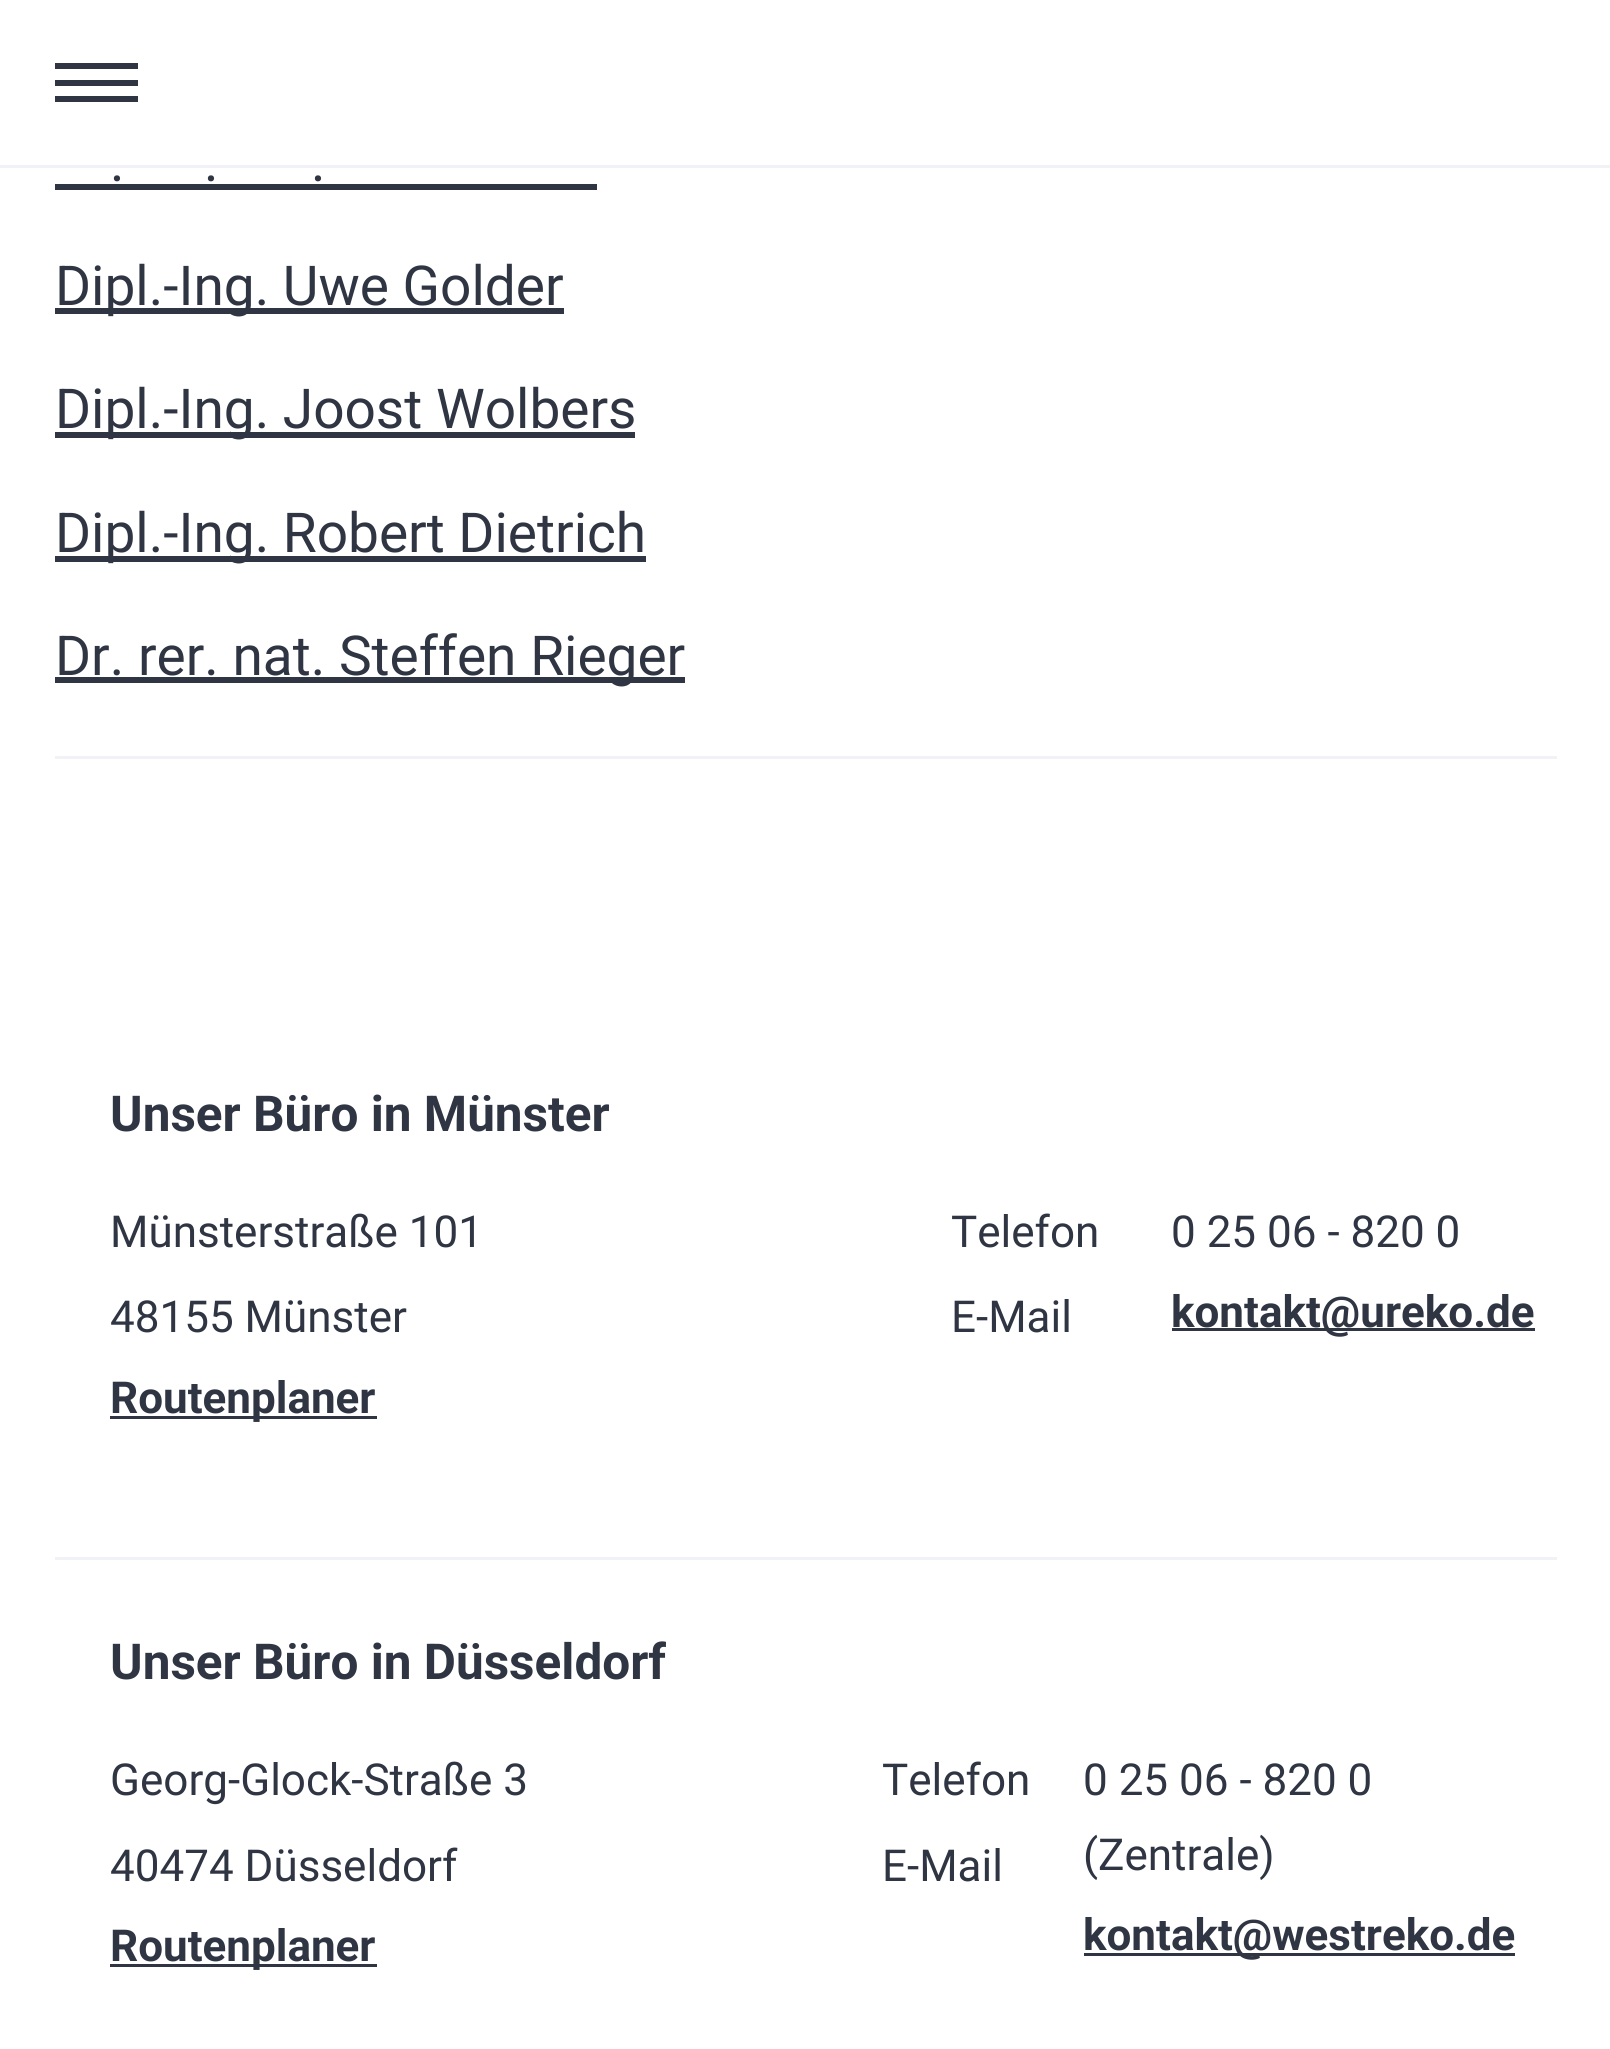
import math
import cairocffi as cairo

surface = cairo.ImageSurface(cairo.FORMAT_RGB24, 1610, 2049)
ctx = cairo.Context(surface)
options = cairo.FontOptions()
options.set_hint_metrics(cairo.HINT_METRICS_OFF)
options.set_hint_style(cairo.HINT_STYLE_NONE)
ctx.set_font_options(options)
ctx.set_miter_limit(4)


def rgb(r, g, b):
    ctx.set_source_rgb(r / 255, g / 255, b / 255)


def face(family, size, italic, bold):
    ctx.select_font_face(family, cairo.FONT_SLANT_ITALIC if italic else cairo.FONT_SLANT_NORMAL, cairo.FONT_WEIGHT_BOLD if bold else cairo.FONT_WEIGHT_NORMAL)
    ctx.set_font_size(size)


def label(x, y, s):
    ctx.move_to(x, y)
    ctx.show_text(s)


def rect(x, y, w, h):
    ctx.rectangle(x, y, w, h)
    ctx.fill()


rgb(255, 255, 255)
ctx.paint()
rgb(241, 242, 246)
rect(0, 165, 1610, 3)
rgb(47, 53, 66)
rect(55, 63, 83, 6)
rect(55, 80, 83, 6)
rect(55, 96, 83, 6)
face('Roboto', 55, 0, 0)
label(110, 181, '.')
rect(55, 184, 542, 6)
label(204, 181, '.')
label(311, 181, '.')
rect(55, 308, 509, 6)
label(55, 305, 'Dipl.-Ing. Uwe Golder')
rect(55, 432, 580, 6)
label(55, 428, 'Dipl.-Ing. Joost Wolbers')
rect(55, 556, 591, 6)
label(55, 552, 'Dipl.-Ing. Robert Dietrich')
rect(55, 677, 630, 6)
label(55, 675, 'Dr. rer. nat. Steffen Rieger')
rgb(241, 242, 246)
rect(55, 756, 1502, 3)
face('Roboto', 49.5, 0, 1)
rgb(47, 53, 66)
label(110, 1131, 'Unser Büro in Münster')
face('Roboto', 44, 0, 0)
label(110, 1247, 'Münsterstraße 101')
label(110, 1332, '48155 Münster')
rect(110, 1416, 267, 3)
face('Roboto', 44, 0, 1)
label(110, 1413, 'Routenplaner')
face('Roboto', 44, 0, 0)
label(951, 1247, 'Telefon')
label(951, 1332, 'E-Mail')
label(1171, 1247, '0 25 06 - 820 0')
rect(1172, 1328, 363, 3)
face('Roboto', 44, 0, 1)
label(1171, 1327, 'kontakt@ureko.de')
rgb(241, 242, 246)
rect(55, 1557, 1502, 3)
face('Roboto', 49.5, 0, 1)
rgb(47, 53, 66)
label(110, 1679, 'Unser Büro in Düsseldorf')
face('Roboto', 44, 0, 0)
label(110, 1795, 'Georg-Glock-Straße 3')
label(110, 1881, '40474 Düsseldorf')
rect(110, 1964, 267, 3)
face('Roboto', 44, 0, 1)
label(110, 1961, 'Routenplaner')
face('Roboto', 44, 0, 0)
label(882, 1795, 'Telefon')
label(882, 1881, 'E-Mail')
label(1083, 1795, '0 25 06 - 820 0')
label(1083, 1870, '(Zentrale)')
rect(1084, 1953, 431, 3)
face('Roboto', 44, 0, 1)
label(1083, 1950, 'kontakt@westreko.de')
surface.write_to_png('render.png')
